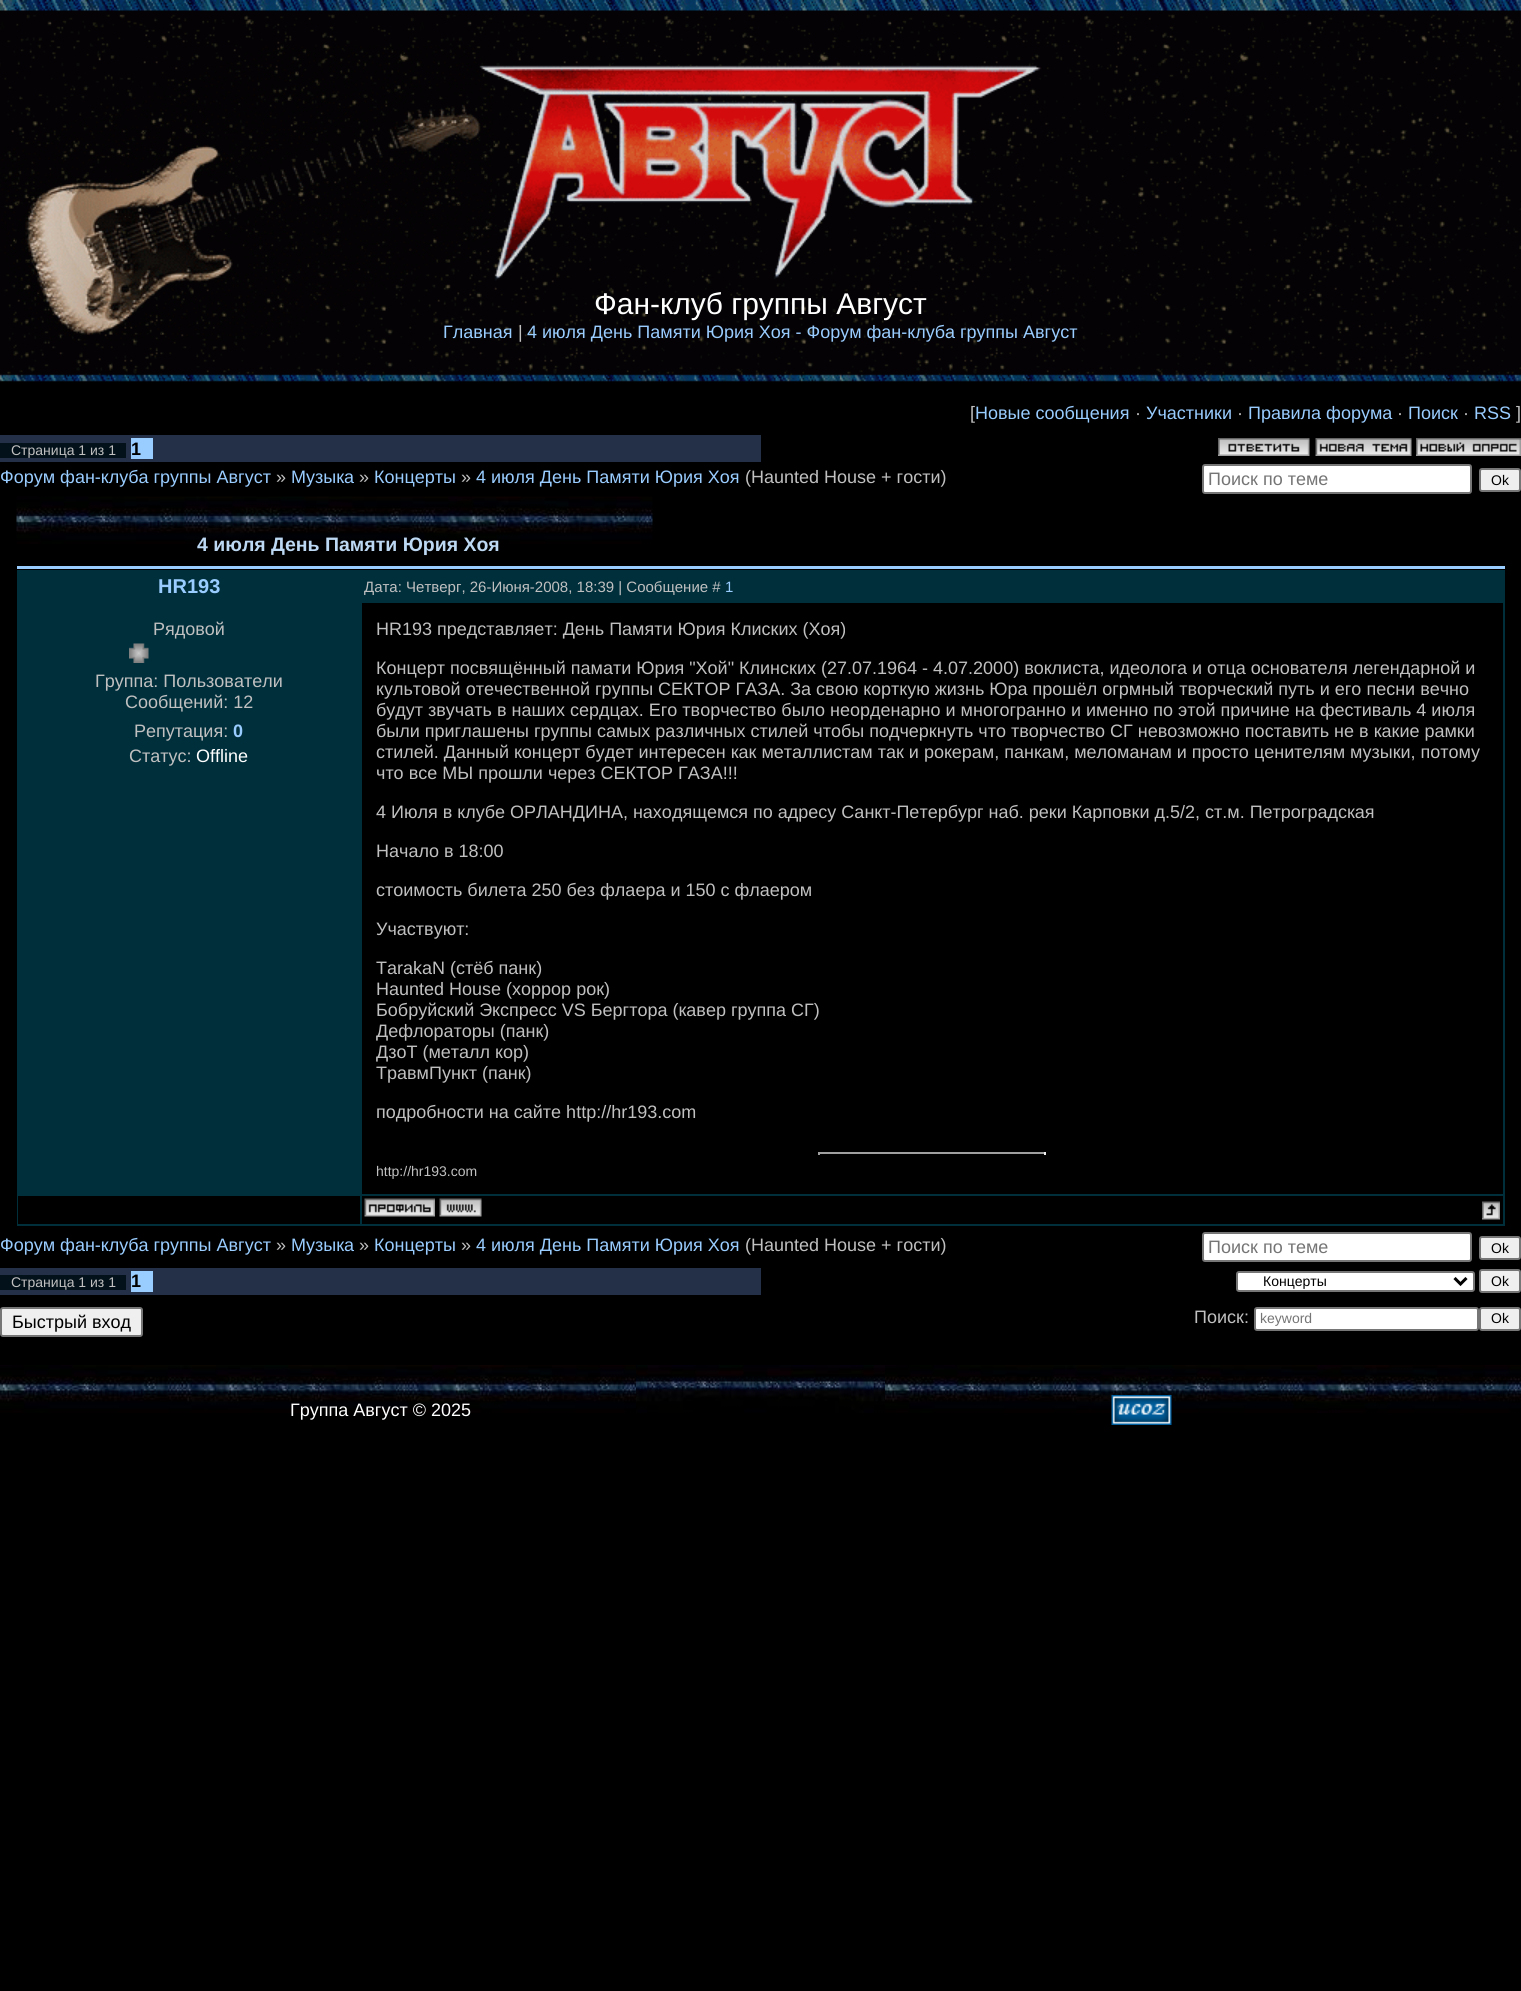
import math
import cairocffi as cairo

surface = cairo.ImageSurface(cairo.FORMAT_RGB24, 1521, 1991)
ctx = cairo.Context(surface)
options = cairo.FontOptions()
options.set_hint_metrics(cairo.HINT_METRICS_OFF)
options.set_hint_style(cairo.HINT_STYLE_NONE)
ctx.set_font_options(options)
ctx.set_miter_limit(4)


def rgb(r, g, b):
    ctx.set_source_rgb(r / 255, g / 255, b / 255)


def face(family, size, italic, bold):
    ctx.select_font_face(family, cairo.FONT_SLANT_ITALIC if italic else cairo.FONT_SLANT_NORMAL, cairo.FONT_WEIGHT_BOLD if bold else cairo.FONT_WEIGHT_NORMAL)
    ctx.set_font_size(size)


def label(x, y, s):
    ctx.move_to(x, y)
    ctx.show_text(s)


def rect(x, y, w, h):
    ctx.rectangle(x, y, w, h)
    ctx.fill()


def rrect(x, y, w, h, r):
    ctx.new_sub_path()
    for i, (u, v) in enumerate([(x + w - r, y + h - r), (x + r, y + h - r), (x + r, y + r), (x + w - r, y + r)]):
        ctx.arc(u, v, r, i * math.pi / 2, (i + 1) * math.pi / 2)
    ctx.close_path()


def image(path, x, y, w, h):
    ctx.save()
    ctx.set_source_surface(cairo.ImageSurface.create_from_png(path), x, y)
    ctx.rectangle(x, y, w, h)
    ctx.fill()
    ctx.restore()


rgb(0, 0, 0)
ctx.paint()
image('image0.png', 0, 0, 1521, 382)
image('image1.png', 0, 45, 495, 296)
rgb(0, 0, 0)
rect(1520, 201, 1, 1)
image('image2.png', 479, 65, 563, 216)
face('Liberation Sans', 30, 0, 0)
rgb(255, 255, 255)
label(594, 314, 'Фан-клуб группы Август')
face('Liberation Sans', 18, 0, 0)
rgb(153, 204, 255)
label(443, 338, 'Главная')
rgb(192, 192, 192)
label(518, 338, '|')
rgb(153, 204, 255)
label(527, 338, '4 июля День Памяти Юрия Хоя - Форум фан-клуба группы Август')
rgb(192, 192, 192)
label(970, 419, '[')
rgb(153, 204, 255)
label(975, 419, 'Новые сообщения')
rgb(192, 192, 192)
label(1135, 419, '·')
rgb(153, 204, 255)
label(1146, 419, 'Участники')
rgb(192, 192, 192)
label(1237, 419, '·')
rgb(153, 204, 255)
label(1248, 419, 'Правила форума')
rgb(192, 192, 192)
label(1397, 419, '·')
rgb(153, 204, 255)
label(1408, 419, 'Поиск')
rgb(192, 192, 192)
label(1463, 419, '·')
rgb(153, 204, 255)
label(1474, 419, 'RSS')
rgb(192, 192, 192)
label(1516, 419, ']')
rgb(35, 48, 71)
rect(0, 435, 761, 27)
rgb(3, 17, 26)
rect(0, 443, 126, 15)
face('Liberation Sans', 14, 0, 0)
rgb(192, 192, 192)
label(11, 455, 'Страница 1 из 1')
rgb(153, 204, 255)
rect(131, 438, 22, 21)
face('Liberation Sans', 18, 0, 1)
rgb(0, 0, 0)
label(131, 455, '1')
image('image3.png', 1218, 438, 92, 18)
image('image4.png', 1315, 438, 97, 18)
image('image5.png', 1416, 438, 105, 18)
face('Liberation Sans', 18, 0, 0)
rgb(153, 204, 255)
label(0, 483, 'Форум фан-клуба группы Август')
rgb(192, 192, 192)
label(276, 483, '»')
rgb(153, 204, 255)
label(291, 483, 'Музыка')
rgb(192, 192, 192)
label(359, 483, '»')
rgb(153, 204, 255)
label(374, 483, 'Концерты')
rgb(192, 192, 192)
label(461, 483, '»')
rgb(153, 204, 255)
label(476, 483, '4 июля День Памяти Юрия Хоя')
rgb(192, 192, 192)
label(745, 483, '(Haunted House + гости)')
rgb(255, 255, 255)
rrect(1203, 465, 268, 28, 2)
ctx.fill_preserve()
rgb(118, 118, 118)
ctx.stroke()
rgb(117, 117, 117)
label(1208, 485, 'Поиск по теме')
rgb(239, 239, 239)
rrect(1480, 469, 40, 22, 2)
ctx.fill_preserve()
rgb(118, 118, 118)
ctx.stroke()
face('Liberation Sans', 14, 0, 0)
rgb(0, 0, 0)
label(1491, 485, 'Ok')
image('image6.png', 16, 496, 637, 48)
face('Liberation Sans', 19.5, 0, 1)
rgb(188, 216, 242)
label(197, 551, '4 июля День Памяти Юрия Хоя')
rgb(153, 204, 255)
rect(17, 566, 1488, 3)
rgb(0, 47, 60)
rect(17, 570, 1488, 656)
face('Liberation Sans', 20, 0, 1)
rgb(153, 204, 255)
label(158, 593, 'HR193')
face('Liberation Sans', 15, 0, 0)
rgb(192, 192, 192)
label(364, 592, 'Дата: Четверг, 26-Июня-2008, 18:39 | Сообщение #')
rgb(153, 204, 255)
label(725, 592, '1')
face('Liberation Sans', 18, 0, 0)
rgb(192, 192, 192)
label(153, 635, 'Рядовой')
image('image7.png', 129, 643, 20, 20)
label(95, 687, 'Группа: Пользователи')
label(125, 708, 'Сообщений: 12')
label(134, 737, 'Репутация:')
face('Liberation Sans', 18, 0, 1)
rgb(153, 204, 255)
label(233, 737, '0')
face('Liberation Sans', 18, 0, 0)
rgb(192, 192, 192)
label(129, 762, 'Статус:')
rgb(255, 255, 255)
label(196, 762, 'Offline')
rgb(0, 0, 0)
rect(362, 603, 1141, 591)
rgb(192, 192, 192)
label(376, 635, 'HR193 представляет: День Памяти Юрия Клиских (Хоя)')
label(376, 674, 'Концерт посвящённый памати Юрия "Хой" Клинских (27.07.1964 - 4.07.2000) воклиста, идеолога и отца основателя легендарной и')
label(376, 695, 'культовой отечественной группы СЕКТОР ГАЗА. За свою корткую жизнь Юра прошёл огрмный творческий путь и его песни вечно')
label(376, 716, 'будут звучать в наших сердцах. Его творчество было неорденарно и многогранно и именно по этой причине на фестиваль 4 июля')
label(376, 737, 'были приглашены группы самых различных стилей чтобы подчеркнуть что творчество СГ невозможно поставить не в какие рамки')
label(376, 758, 'стилей. Данный концерт будет интересен как металлистам так и рокерам, панкам, меломанам и просто ценителям музыки, потому')
label(376, 779, 'что все МЫ прошли через СЕКТОР ГАЗА!!!')
label(376, 818, '4 Июля в клубе ОРЛАНДИНА, находящемся по адресу Санкт-Петербург наб. реки Карповки д.5/2, ст.м. Петроградская')
label(376, 857, 'Начало в 18:00')
label(376, 896, 'стоимость билета 250 без флаера и 150 с флаером')
label(376, 935, 'Участвуют:')
label(376, 974, 'TarakaN (стёб панк)')
label(376, 995, 'Haunted House (хоррор рок)')
label(376, 1016, 'Бобруйский Экспресс VS Бергтора (кавер группа СГ)')
label(376, 1037, 'Дефлораторы (панк)')
label(376, 1058, 'ДзоТ (металл кор)')
label(376, 1079, 'ТравмПункт (панк)')
label(376, 1118, 'подробности на сайте http://hr193.com')
rgb(159, 159, 159)
rect(818, 1152, 228, 2)
rgb(238, 238, 238)
rect(1044, 1152, 2, 3)
rgb(159, 159, 159)
rect(818, 1152, 2, 3)
face('Liberation Sans', 14, 0, 0)
rgb(192, 192, 192)
label(376, 1176, 'http://hr193.com')
rgb(0, 0, 0)
rect(18, 1196, 342, 28)
rect(362, 1196, 1141, 28)
image('image8.png', 364, 1198, 71, 19)
image('image9.png', 439, 1198, 43, 19)
image('image10.png', 1482, 1201, 18, 19)
face('Liberation Sans', 18, 0, 0)
rgb(153, 204, 255)
label(0, 1251, 'Форум фан-клуба группы Август')
rgb(192, 192, 192)
label(276, 1251, '»')
rgb(153, 204, 255)
label(291, 1251, 'Музыка')
rgb(192, 192, 192)
label(359, 1251, '»')
rgb(153, 204, 255)
label(374, 1251, 'Концерты')
rgb(192, 192, 192)
label(461, 1251, '»')
rgb(153, 204, 255)
label(476, 1251, '4 июля День Памяти Юрия Хоя')
rgb(192, 192, 192)
label(745, 1251, '(Haunted House + гости)')
rgb(255, 255, 255)
rrect(1203, 1233, 268, 28, 2)
ctx.fill_preserve()
rgb(118, 118, 118)
ctx.stroke()
rgb(117, 117, 117)
label(1208, 1253, 'Поиск по теме')
rgb(239, 239, 239)
rrect(1480, 1237, 40, 22, 2)
ctx.fill_preserve()
rgb(118, 118, 118)
ctx.stroke()
face('Liberation Sans', 14, 0, 0)
rgb(0, 0, 0)
label(1491, 1253, 'Ok')
rgb(35, 48, 71)
rect(0, 1268, 761, 27)
rgb(3, 17, 26)
rect(0, 1275, 126, 15)
rgb(192, 192, 192)
label(11, 1287, 'Страница 1 из 1')
rgb(153, 204, 255)
rect(131, 1271, 22, 21)
face('Liberation Sans', 18, 0, 1)
rgb(0, 0, 0)
label(131, 1287, '1')
rgb(255, 255, 255)
rrect(1237, 1272, 237, 19, 2)
ctx.fill_preserve()
rgb(118, 118, 118)
ctx.stroke()
ctx.new_path()
ctx.move_to(1454.5, 1278)
ctx.line_to(1460.5, 1284)
ctx.line_to(1466.5, 1278)
rgb(0, 0, 0)
ctx.set_line_width(3)
ctx.stroke()
face('Liberation Sans', 14, 0, 0)
label(1263, 1286, 'Концерты')
rgb(239, 239, 239)
rrect(1480, 1270, 40, 22, 2)
ctx.fill_preserve()
rgb(118, 118, 118)
ctx.set_line_width(2)
ctx.stroke()
rgb(0, 0, 0)
label(1491, 1286, 'Ok')
rgb(239, 239, 239)
rrect(1, 1308, 141, 28, 2)
ctx.fill_preserve()
rgb(118, 118, 118)
ctx.stroke()
face('Liberation Sans', 18, 0, 0)
rgb(0, 0, 0)
label(12, 1328, 'Быстрый вход')
rgb(192, 192, 192)
label(1194, 1323, 'Поиск:')
rgb(255, 255, 255)
rrect(1255, 1308, 223, 22, 2)
ctx.fill_preserve()
rgb(118, 118, 118)
ctx.stroke()
face('Liberation Sans', 14, 0, 0)
rgb(117, 117, 117)
label(1260, 1323, 'keyword')
rgb(239, 239, 239)
rrect(1480, 1308, 40, 22, 2)
ctx.fill_preserve()
rgb(118, 118, 118)
ctx.stroke()
rgb(0, 0, 0)
label(1491, 1323, 'Ok')
image('image11.png', 636, 1365, 249, 48)
image('image12.png', 0, 1365, 636, 48)
face('Liberation Sans', 18, 0, 0)
rgb(255, 255, 255)
label(290, 1416, 'Группа Август © 2025')
image('image12.png', 885, 1365, 636, 48)
image('image13.png', 1111, 1395, 61, 30)
surface.write_to_png('render.png')
